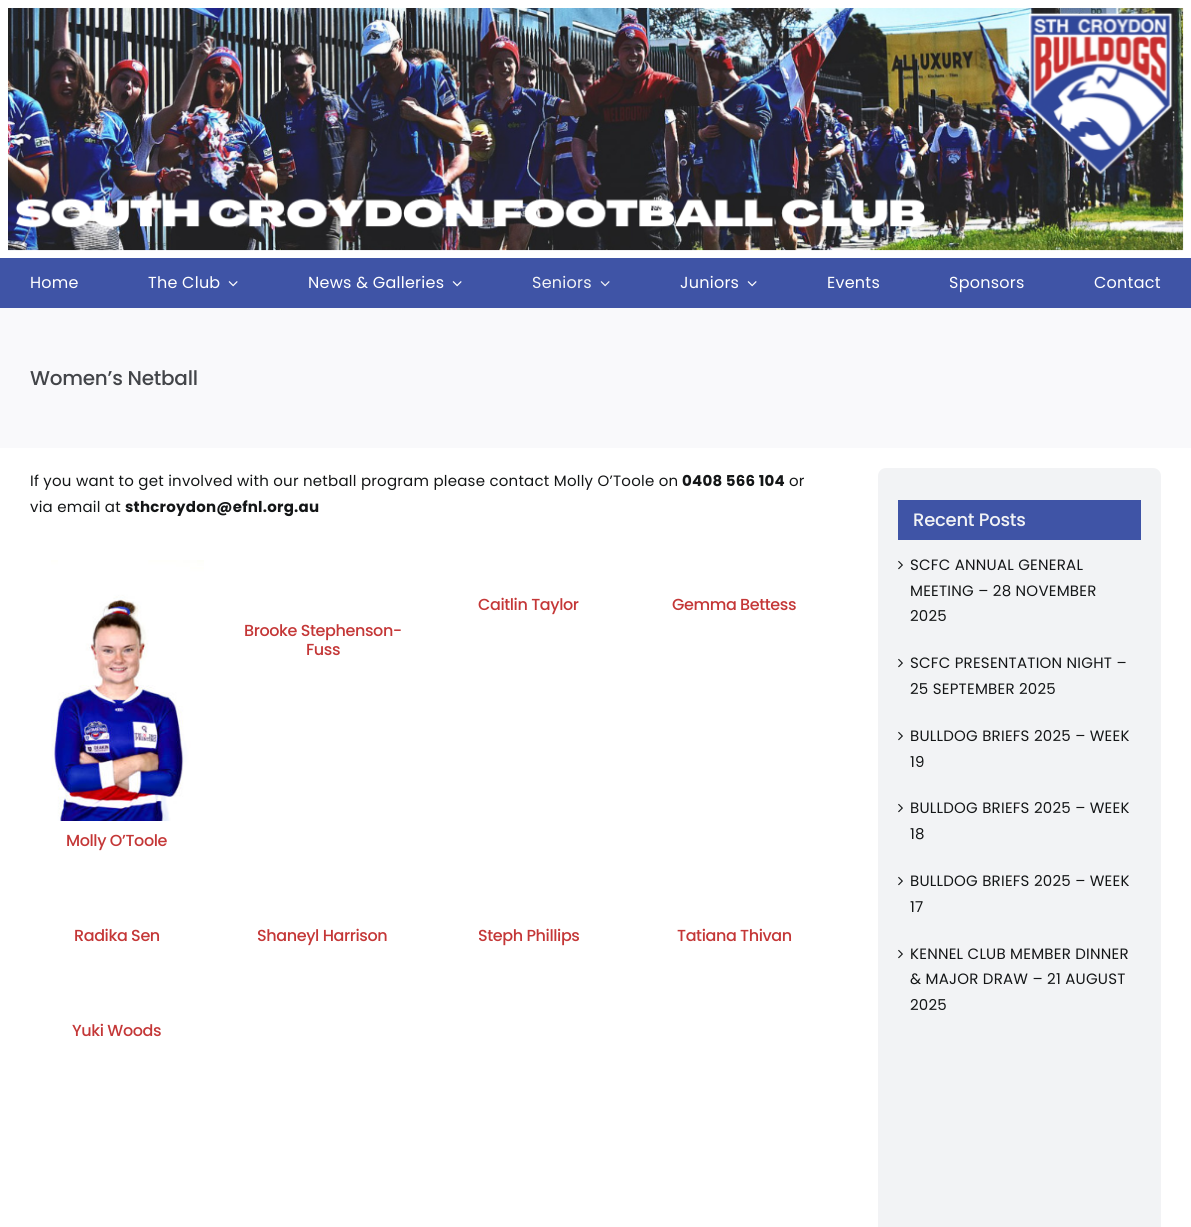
import math
import cairocffi as cairo

surface = cairo.ImageSurface(cairo.FORMAT_RGB24, 1191, 1227)
ctx = cairo.Context(surface)
options = cairo.FontOptions()
options.set_hint_metrics(cairo.HINT_METRICS_OFF)
options.set_hint_style(cairo.HINT_STYLE_NONE)
ctx.set_font_options(options)
ctx.set_miter_limit(4)


def rgb(r, g, b):
    ctx.set_source_rgb(r / 255, g / 255, b / 255)


def face(family, size, italic, bold):
    ctx.select_font_face(family, cairo.FONT_SLANT_ITALIC if italic else cairo.FONT_SLANT_NORMAL, cairo.FONT_WEIGHT_BOLD if bold else cairo.FONT_WEIGHT_NORMAL)
    ctx.set_font_size(size)


def tracked(x, y, s, letter, word):
    ctx.move_to(x, y)
    for ch in s:
        ctx.show_text(ch)
        ctx.rel_move_to(letter + word * (ch == ' '), 0)


def rect(x, y, w, h):
    ctx.rectangle(x, y, w, h)
    ctx.fill()


def rrect(x, y, w, h, r):
    ctx.new_sub_path()
    for i, (u, v) in enumerate([(x + w - r, y + h - r), (x + r, y + h - r), (x + r, y + r), (x + w - r, y + r)]):
        ctx.arc(u, v, r, i * math.pi / 2, (i + 1) * math.pi / 2)
    ctx.close_path()


def image(path, x, y, w, h):
    ctx.save()
    ctx.set_source_surface(cairo.ImageSurface.create_from_png(path), x, y)
    ctx.rectangle(x, y, w, h)
    ctx.fill()
    ctx.restore()


rgb(249, 249, 251)
ctx.paint()
image('image0.png', 0, 0, 1191, 258)
rgb(63, 84, 166)
rect(0, 258, 1191, 50)
face('Poppins', 16, 0, 0)
rgb(255, 255, 255)
tracked(30, 288, 'Home', 0.25, 0)
tracked(148, 288, 'The Club', 0.25, 0)
image('image1.png', 228, 281, 10, 6)
tracked(308, 288, 'News & Galleries', 0.25, 0)
image('image1.png', 452, 281, 10, 6)
rgb(242, 243, 245)
tracked(532, 288, 'Seniors', 0.25, 0)
image('image2.png', 600, 281, 10, 6)
rgb(255, 255, 255)
tracked(680, 288, 'Juniors', 0.25, 0)
image('image1.png', 747, 281, 10, 6)
tracked(827, 288, 'Events', 0.25, 0)
tracked(949, 288, 'Sponsors', 0.25, 0)
tracked(1094, 288, 'Contact', 0.25, 0)
face('Poppins Medium', 20, 0, 0)
rgb(67, 69, 73)
tracked(30, 385, 'Women’s Netball', -0.25, 0)
rgb(255, 255, 255)
rect(0, 448, 1191, 779)
face('Poppins', 15, 0, 0)
rgb(20, 22, 23)
tracked(30, 486, 'If you want to get involved with our netball program please contact Molly O’Toole on', 0.23, 0)
face('Poppins', 15, 0, 1)
tracked(682, 486, '0408 566 104', 0.23, 0)
face('Poppins', 15, 0, 0)
tracked(789, 486, 'or', 0.23, 0)
tracked(30, 512, 'via email at', 0.23, 0)
face('Poppins', 15, 0, 1)
tracked(125, 512, 'sthcroydon@efnl.org.au', 0.23, 0)
face('Poppins Medium', 16, 0, 0)
rgb(196, 55, 55)
tracked(478, 610, 'Caitlin Taylor', -0.4, 0)
tracked(672, 610, 'Gemma Bettess', -0.4, 0)
tracked(244, 636, 'Brooke Stephenson-', -0.4, 0)
tracked(306, 655, 'Fuss', -0.4, 0)
image('image3.png', 51, 560, 153, 261)
tracked(66, 846, 'Molly O’Toole', -0.4, 0)
tracked(74, 941, 'Radika Sen', -0.4, 0)
tracked(257, 941, 'Shaneyl Harrison', -0.4, 0)
tracked(478, 941, 'Steph Phillips', -0.4, 0)
tracked(677, 941, 'Tatiana Thivan', -0.4, 0)
tracked(72, 1036, 'Yuki Woods', -0.4, 0)
rgb(242, 243, 245)
rrect(878, 468, 283, 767, 8)
ctx.fill()
rgb(63, 84, 166)
rect(898, 500, 243, 40)
face('Poppins Medium', 18, 0, 0)
rgb(242, 243, 245)
tracked(913, 526, 'Recent Posts', -0.25, 0)
image('image4.png', 898, 560, 5, 10)
face('Poppins', 15, 0, 0)
rgb(20, 22, 23)
tracked(910, 570, 'SCFC ANNUAL GENERAL', 0.23, 0)
tracked(910, 596, 'MEETING – 28 NOVEMBER', 0.23, 0)
tracked(910, 621, '2025', 0.23, 0)
image('image4.png', 898, 658, 5, 10)
tracked(910, 668, 'SCFC PRESENTATION NIGHT –', 0.23, 0)
tracked(910, 694, '25 SEPTEMBER 2025', 0.23, 0)
image('image4.png', 898, 731, 5, 10)
tracked(910, 741, 'BULLDOG BRIEFS 2025 – WEEK', 0.23, 0)
tracked(910, 767, '19', 0.23, 0)
image('image4.png', 898, 803, 5, 10)
tracked(910, 813, 'BULLDOG BRIEFS 2025 – WEEK', 0.23, 0)
tracked(910, 839, '18', 0.23, 0)
image('image4.png', 898, 876, 5, 10)
tracked(910, 886, 'BULLDOG BRIEFS 2025 – WEEK', 0.23, 0)
tracked(910, 912, '17', 0.23, 0)
image('image4.png', 898, 949, 5, 10)
tracked(910, 959, 'KENNEL CLUB MEMBER DINNER', 0.23, 0)
tracked(910, 984, '& MAJOR DRAW – 21 AUGUST', 0.23, 0)
tracked(910, 1010, '2025', 0.23, 0)
surface.write_to_png('render.png')
